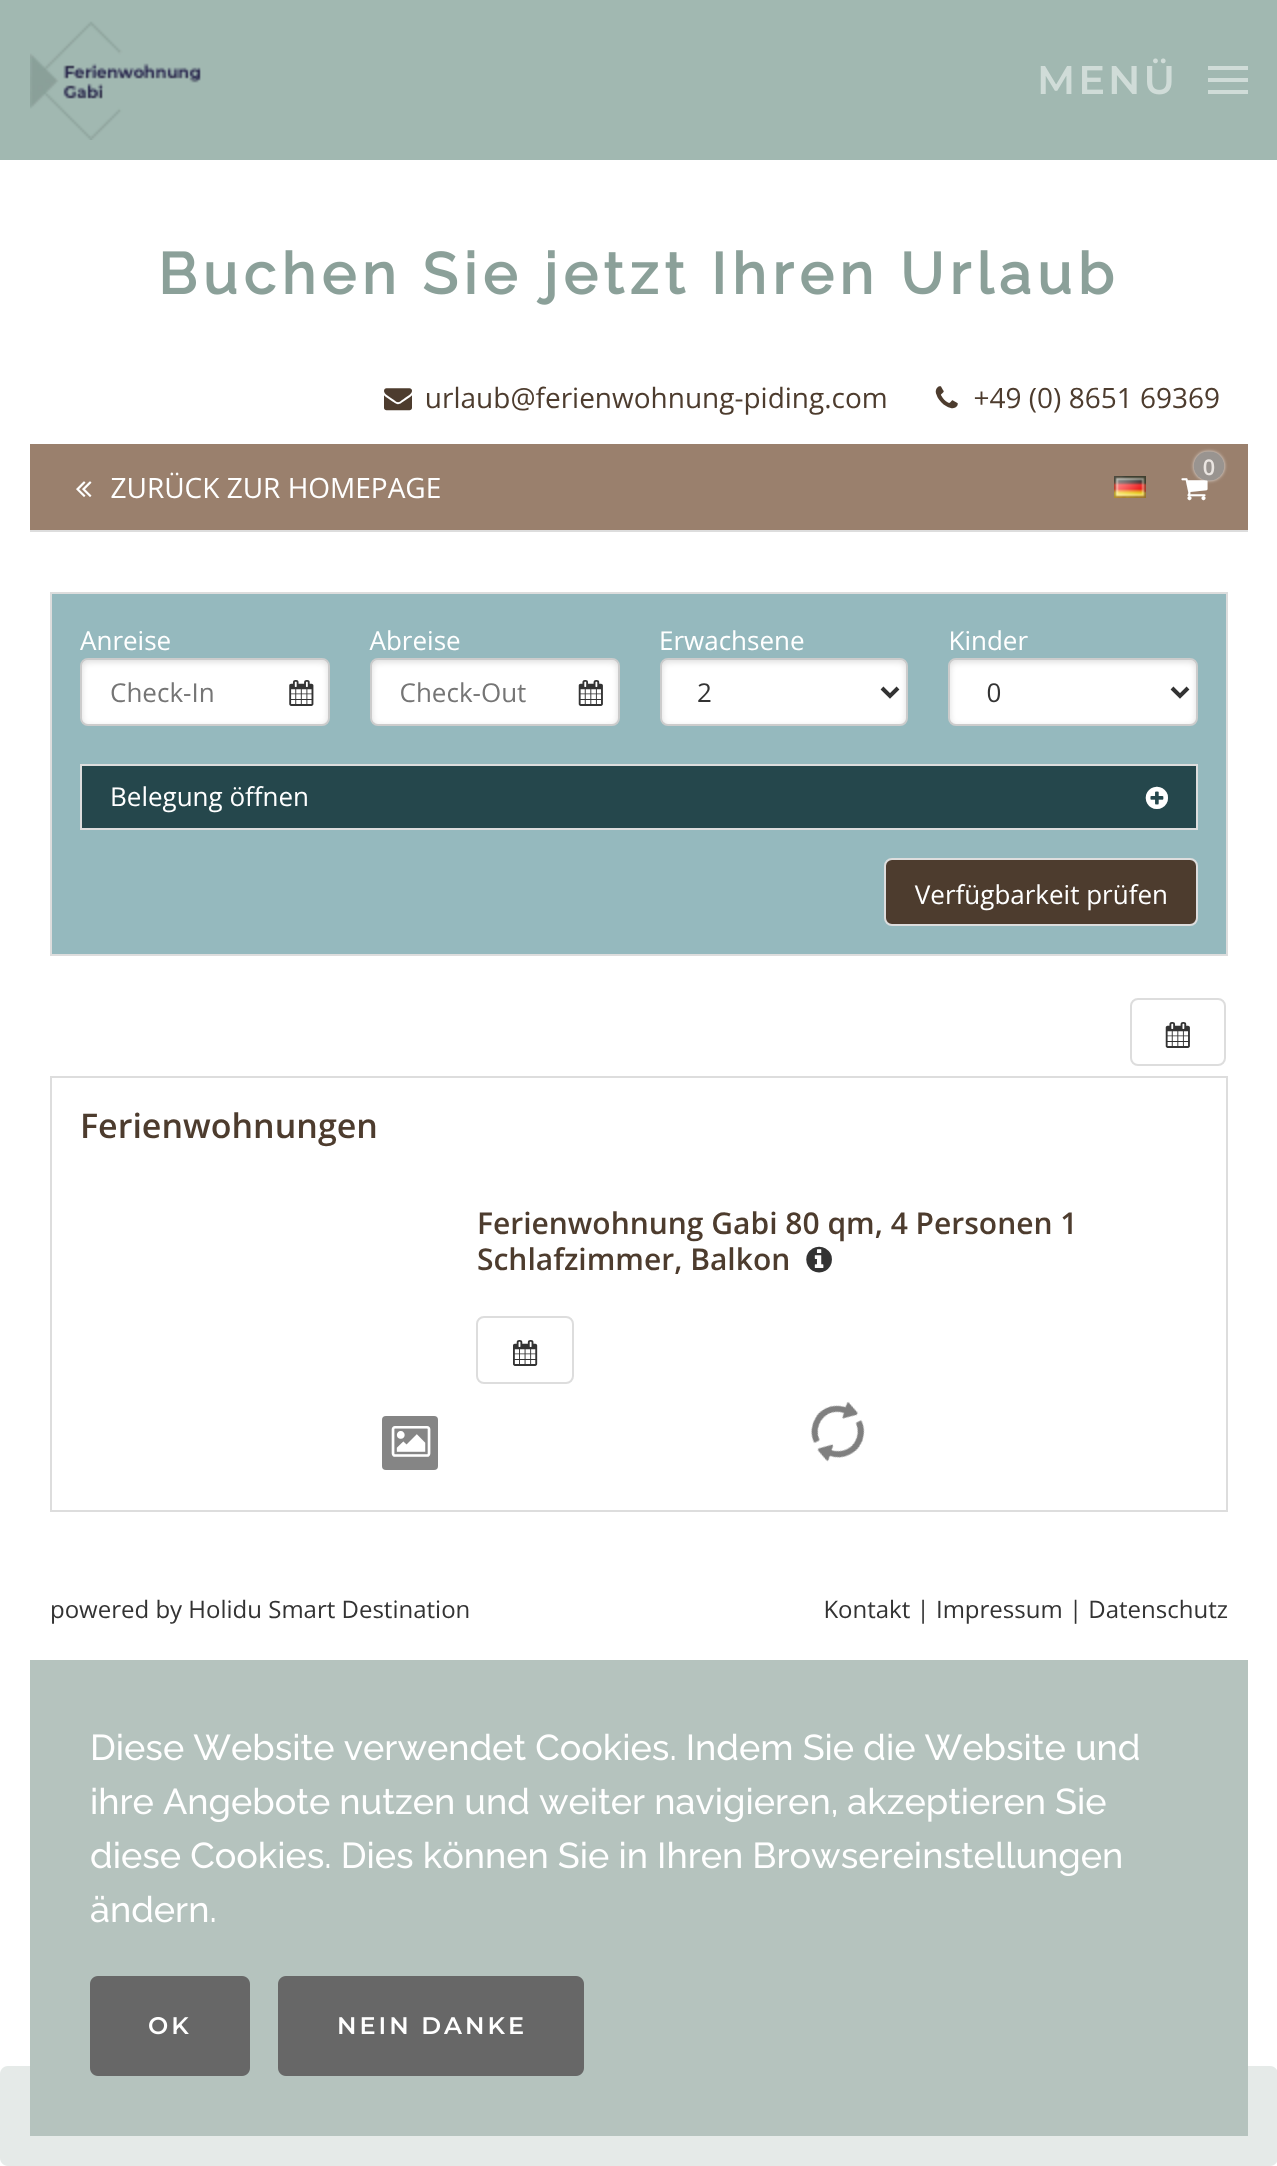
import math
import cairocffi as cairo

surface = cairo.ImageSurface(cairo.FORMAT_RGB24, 1277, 2166)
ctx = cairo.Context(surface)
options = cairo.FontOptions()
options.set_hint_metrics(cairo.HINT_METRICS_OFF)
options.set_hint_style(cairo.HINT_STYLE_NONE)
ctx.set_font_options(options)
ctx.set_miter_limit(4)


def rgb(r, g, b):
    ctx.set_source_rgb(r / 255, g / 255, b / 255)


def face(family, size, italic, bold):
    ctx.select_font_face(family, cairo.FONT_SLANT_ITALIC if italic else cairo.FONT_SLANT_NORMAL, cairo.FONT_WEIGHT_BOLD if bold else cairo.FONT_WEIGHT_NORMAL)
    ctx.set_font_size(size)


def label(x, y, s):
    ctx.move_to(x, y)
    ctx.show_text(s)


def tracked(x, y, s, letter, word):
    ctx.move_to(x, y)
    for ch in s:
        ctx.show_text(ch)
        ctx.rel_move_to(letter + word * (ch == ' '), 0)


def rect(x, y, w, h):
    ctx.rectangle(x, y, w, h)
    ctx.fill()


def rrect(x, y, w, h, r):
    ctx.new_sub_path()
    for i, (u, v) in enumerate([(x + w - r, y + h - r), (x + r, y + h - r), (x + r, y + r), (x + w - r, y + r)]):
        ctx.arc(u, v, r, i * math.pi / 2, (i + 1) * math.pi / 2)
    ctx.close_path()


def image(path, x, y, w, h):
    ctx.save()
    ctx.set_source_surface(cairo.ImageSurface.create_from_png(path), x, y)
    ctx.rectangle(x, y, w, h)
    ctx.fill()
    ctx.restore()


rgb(255, 255, 255)
ctx.paint()
rgb(161, 184, 177)
rect(0, 0, 1277, 160)
image('image0.png', 30, 21, 171, 119)
face('Montserrat Thin', 40, 0, 0)
rgb(208, 220, 216)
tracked(1037, 94, 'MENÜ', 3, 0)
rect(1208, 66, 40, 4)
rect(1208, 78, 40, 4)
rect(1208, 90, 40, 4)
face('Raleway', 57.75, 0, 1)
rgb(139, 160, 153)
tracked(158, 294, 'Buchen Sie jetzt Ihren Urlaub', 6, 0)
image('image1.png', 30, 386, 1218, 1238)
rgb(229, 234, 232)
rrect(0, 2066, 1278, 100, 8)
ctx.fill()
rgb(181, 195, 190)
rect(30, 1660, 1218, 476)
face('Raleway Thin', 36, 0, 0)
rgb(255, 255, 255)
label(90, 1760, 'Diese Website verwendet Cookies. Indem Sie die Website und')
label(90, 1814, 'ihre Angebote nutzen und weiter navigieren, akzeptieren Sie')
label(90, 1868, 'diese Cookies. Dies können Sie in Ihren Browsereinstellungen')
label(90, 1922, 'ändern.')
rgb(103, 103, 103)
rrect(90, 1976, 160, 100, 8)
ctx.fill()
face('Montserrat Thin', 24, 0, 0)
rgb(255, 255, 255)
tracked(148, 2034, 'OK', 3, 0)
rgb(103, 103, 103)
rrect(278, 1976, 306, 100, 8)
ctx.fill()
rgb(255, 255, 255)
tracked(337, 2034, 'NEIN DANKE', 3, 0)
surface.write_to_png('render.png')
